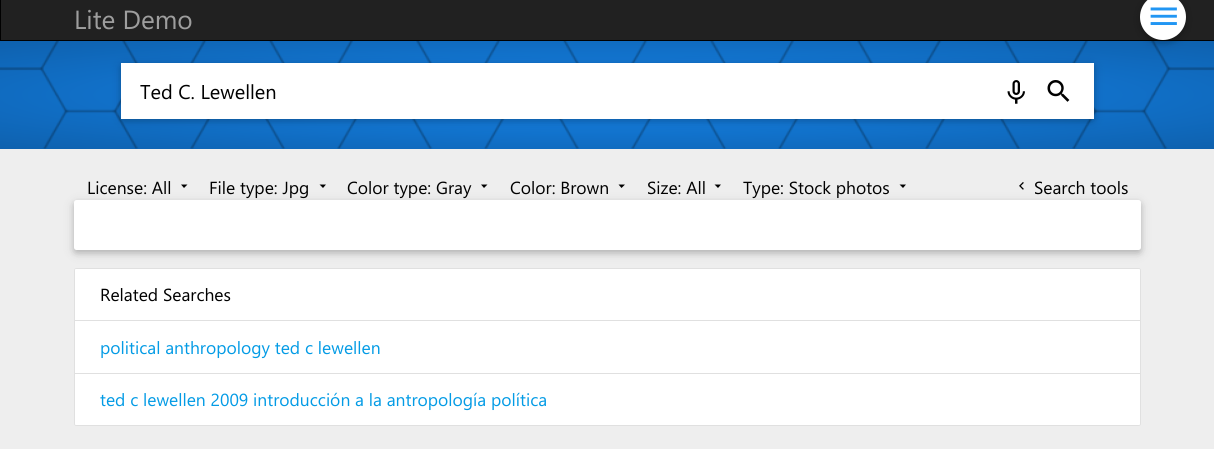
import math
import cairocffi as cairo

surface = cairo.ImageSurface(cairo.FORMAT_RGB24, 1214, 449)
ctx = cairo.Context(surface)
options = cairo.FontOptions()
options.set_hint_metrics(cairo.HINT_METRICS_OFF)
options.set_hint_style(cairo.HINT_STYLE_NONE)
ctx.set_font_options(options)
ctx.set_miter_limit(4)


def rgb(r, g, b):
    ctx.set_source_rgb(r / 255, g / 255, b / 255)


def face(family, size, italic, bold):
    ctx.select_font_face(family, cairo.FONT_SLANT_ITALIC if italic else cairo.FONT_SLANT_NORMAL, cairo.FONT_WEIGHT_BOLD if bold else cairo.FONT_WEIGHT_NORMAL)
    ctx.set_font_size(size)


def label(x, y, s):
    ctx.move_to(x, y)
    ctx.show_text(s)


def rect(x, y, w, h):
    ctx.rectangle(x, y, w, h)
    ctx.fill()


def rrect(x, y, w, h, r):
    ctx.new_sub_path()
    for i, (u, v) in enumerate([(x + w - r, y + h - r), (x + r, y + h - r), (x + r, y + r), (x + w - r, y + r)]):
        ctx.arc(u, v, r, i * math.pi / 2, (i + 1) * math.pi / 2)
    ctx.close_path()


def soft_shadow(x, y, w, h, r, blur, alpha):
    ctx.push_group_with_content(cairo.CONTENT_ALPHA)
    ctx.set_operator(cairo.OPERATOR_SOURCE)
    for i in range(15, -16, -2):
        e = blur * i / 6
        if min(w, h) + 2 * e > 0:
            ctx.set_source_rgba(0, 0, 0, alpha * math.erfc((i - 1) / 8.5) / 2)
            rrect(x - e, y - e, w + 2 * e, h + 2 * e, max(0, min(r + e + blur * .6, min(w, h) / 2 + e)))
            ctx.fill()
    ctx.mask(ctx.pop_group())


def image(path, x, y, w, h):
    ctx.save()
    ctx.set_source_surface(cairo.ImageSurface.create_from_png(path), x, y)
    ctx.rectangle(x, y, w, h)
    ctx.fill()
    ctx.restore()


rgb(238, 238, 238)
ctx.paint()
rgb(33, 33, 33)
ctx.rectangle(0.5, -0.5, 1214, 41)
ctx.fill_preserve()
rgb(0, 0, 0)
ctx.set_line_width(1)
ctx.stroke()
face('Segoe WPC', 26.25, 0, 0)
rgb(158, 158, 158)
label(74, 29, 'Lite Demo')
gradient = cairo.RadialGradient(0, 0, 0, 0, 0, 1)
gradient.set_matrix(cairo.Matrix(1 / 859, 0, 0, 1 / 76, -1 * 608 / 859, -1 * 95 / 76))
gradient.add_color_stop_rgba(0, 0.082, 0.522, 0.929, 1)
gradient.add_color_stop_rgba(1, 0.055, 0.38, 0.682, 1)
ctx.set_source(gradient)
rect(0, 41, 1214, 108)
image('image1.png', 0, 41, 1214, 108)
rgb(0, 0, 0)
soft_shadow(1140, -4, 46, 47, 23, 6, 0.12)
soft_shadow(1140, -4, 46, 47, 23, 3, 0.16)
rgb(255, 255, 255)
ctx.arc(1163, 17, 23, 0, 2 * math.pi)
ctx.fill()
image('image0.png', 1150, 7, 27, 18)
rgb(0, 0, 0)
soft_shadow(121, 65, 973, 56, 2.5, 6, 0.12)
soft_shadow(121, 65, 973, 56, 2.5, 3, 0.16)
rgb(255, 255, 255)
rect(121, 63, 973, 56)
face('Segoe WPC', 20, 0, 0)
rgb(0, 0, 0)
label(140, 99, 'Ted C. Lewellen')
image('image2.png', 1007, 80, 18, 24)
image('image3.png', 1047, 80, 23, 22)
face('Segoe WPC', 17.5, 0, 0)
label(87, 194, 'License: All')
ctx.new_path()
ctx.move_to(181, 184.5)
ctx.line_to(187.5, 184.5)
ctx.line_to(184, 188)
ctx.close_path()
ctx.fill()
label(209, 194, 'File type: Jpg')
ctx.new_path()
ctx.move_to(319.5, 184.5)
ctx.line_to(326, 184.5)
ctx.line_to(323, 188)
ctx.close_path()
ctx.fill()
label(347, 194, 'Color type: Gray')
ctx.new_path()
ctx.move_to(481, 184.5)
ctx.line_to(487.5, 184.5)
ctx.line_to(484, 188)
ctx.close_path()
ctx.fill()
label(510, 194, 'Color: Brown')
ctx.new_path()
ctx.move_to(618.5, 184.5)
ctx.line_to(625, 184.5)
ctx.line_to(621.5, 188)
ctx.close_path()
ctx.fill()
label(647, 194, 'Size: All')
ctx.new_path()
ctx.move_to(714.5, 184.5)
ctx.line_to(721, 184.5)
ctx.line_to(718, 188)
ctx.close_path()
ctx.fill()
label(743, 194, 'Type: Stock photos')
ctx.new_path()
ctx.move_to(899.5, 184.5)
ctx.line_to(906, 184.5)
ctx.line_to(903, 188)
ctx.close_path()
ctx.fill()
image('image4.png', 1019, 182, 5, 8)
label(1034, 194, 'Search tools')
rgb(0, 0, 0)
soft_shadow(74, 203, 1067, 50, 2.5, 6, 0.12)
soft_shadow(74, 203, 1067, 50, 2.5, 3, 0.16)
rgb(255, 255, 255)
rrect(74, 200, 1067, 50, 2.5)
ctx.fill()
rrect(74.5, 268.5, 1066, 157, 2)
rgb(224, 224, 224)
ctx.stroke()
rgb(255, 255, 255)
ctx.new_path()
ctx.move_to(76, 269)
ctx.line_to(1139, 269)
ctx.curve_to(1139.5, 269, 1140, 269.5, 1140, 270)
ctx.line_to(1140, 321)
ctx.line_to(75, 321)
ctx.line_to(75, 270)
ctx.curve_to(75, 269.5, 75.5, 269, 76, 269)
ctx.close_path()
ctx.fill()
rgb(224, 224, 224)
rect(75, 320, 1065, 1)
rgb(0, 0, 0)
label(100, 301, 'Related Searches')
rgb(255, 255, 255)
rect(75, 321, 1065, 52)
rgb(224, 224, 224)
rect(75, 373, 1065, 1)
rgb(3, 155, 229)
label(100, 354, 'political anthropology ted c lewellen')
rgb(255, 255, 255)
ctx.new_path()
ctx.move_to(75, 374)
ctx.line_to(1140, 374)
ctx.line_to(1140, 424)
ctx.curve_to(1140, 424.5, 1139.5, 425, 1139, 425)
ctx.line_to(76, 425)
ctx.curve_to(75.5, 425, 75, 424.5, 75, 424)
ctx.close_path()
ctx.fill()
rgb(3, 155, 229)
label(100, 406, 'ted c lewellen 2009 introducción a la antropología política')
surface.write_to_png('render.png')
